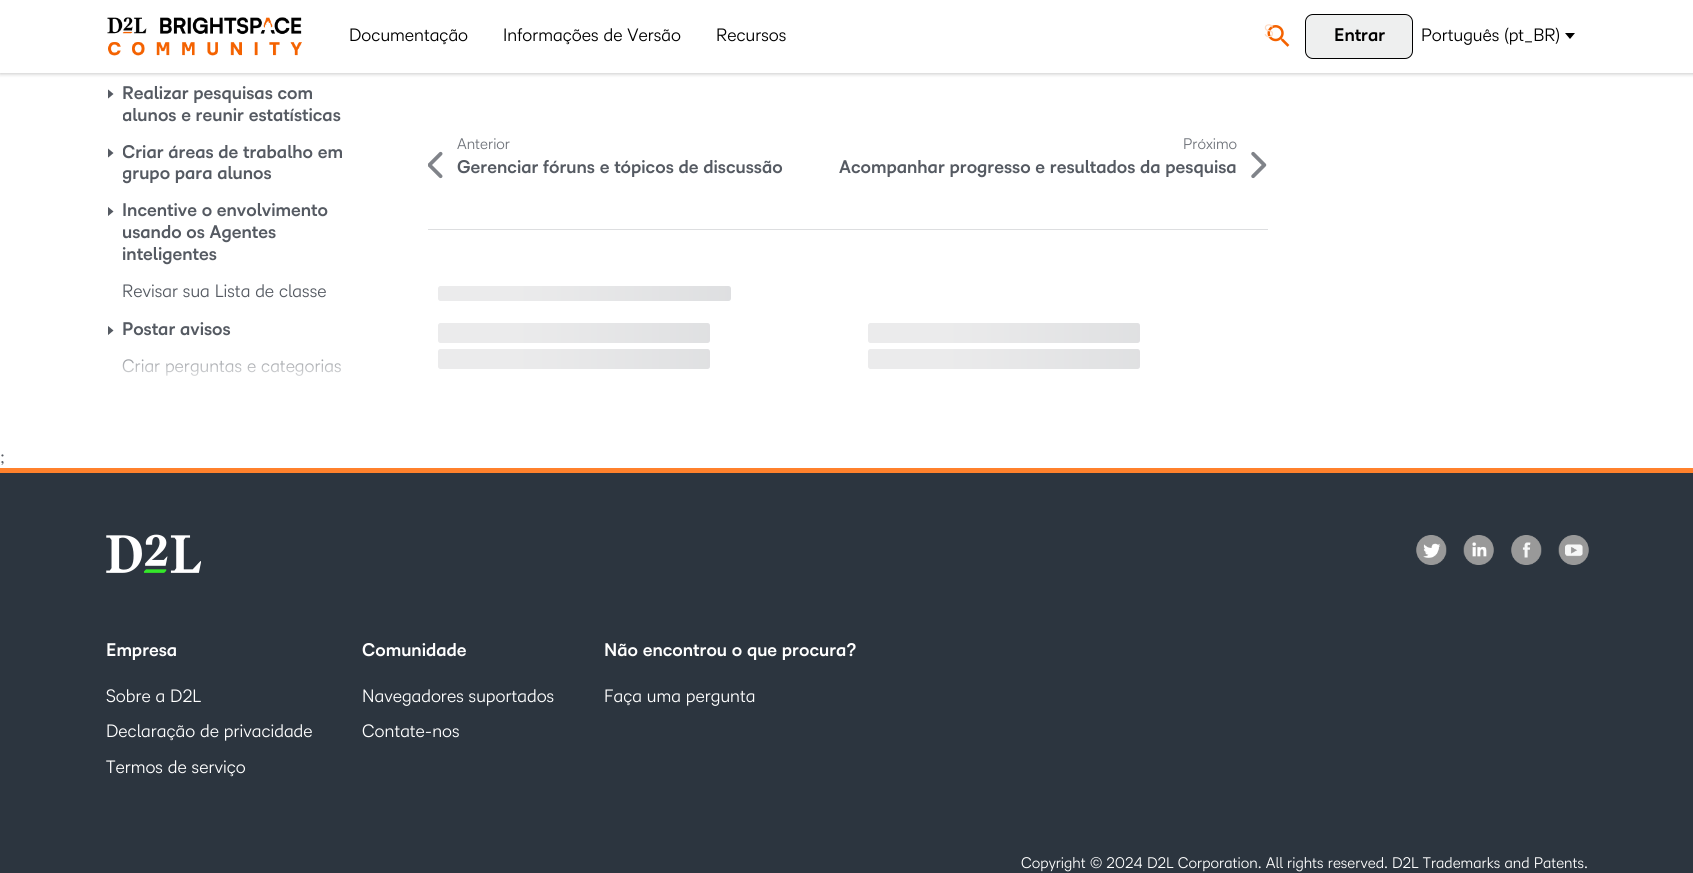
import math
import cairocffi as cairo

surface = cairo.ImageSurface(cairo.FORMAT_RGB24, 1693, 873)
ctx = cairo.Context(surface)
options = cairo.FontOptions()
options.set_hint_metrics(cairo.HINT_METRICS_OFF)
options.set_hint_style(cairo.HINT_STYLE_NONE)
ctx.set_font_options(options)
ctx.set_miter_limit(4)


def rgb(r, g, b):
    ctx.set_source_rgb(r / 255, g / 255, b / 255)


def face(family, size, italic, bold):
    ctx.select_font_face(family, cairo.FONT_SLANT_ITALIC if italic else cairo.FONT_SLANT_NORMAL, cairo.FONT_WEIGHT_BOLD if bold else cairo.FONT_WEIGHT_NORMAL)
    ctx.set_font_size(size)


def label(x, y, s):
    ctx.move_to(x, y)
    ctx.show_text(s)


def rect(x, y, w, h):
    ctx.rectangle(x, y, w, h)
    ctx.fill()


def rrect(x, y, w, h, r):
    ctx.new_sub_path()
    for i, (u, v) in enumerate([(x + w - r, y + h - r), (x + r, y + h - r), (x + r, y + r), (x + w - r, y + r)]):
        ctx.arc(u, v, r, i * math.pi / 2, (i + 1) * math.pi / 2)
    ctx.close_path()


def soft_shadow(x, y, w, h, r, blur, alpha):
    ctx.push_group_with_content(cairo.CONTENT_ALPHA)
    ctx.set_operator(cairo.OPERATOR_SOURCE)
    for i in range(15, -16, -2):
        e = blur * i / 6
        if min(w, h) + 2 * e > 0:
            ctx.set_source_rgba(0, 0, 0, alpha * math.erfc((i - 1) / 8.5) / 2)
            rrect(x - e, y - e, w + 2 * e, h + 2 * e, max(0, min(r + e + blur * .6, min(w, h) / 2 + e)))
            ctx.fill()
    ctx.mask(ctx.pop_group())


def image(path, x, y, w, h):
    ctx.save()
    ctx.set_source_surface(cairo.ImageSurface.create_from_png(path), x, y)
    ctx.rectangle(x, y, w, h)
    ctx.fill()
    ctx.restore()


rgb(255, 255, 255)
ctx.paint()
rgb(0, 0, 0)
soft_shadow(0, 1, 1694, 73, 0, 2, 0.22)
rgb(255, 255, 255)
rect(0, 0, 1693, 73)
image('image0.png', 107, 17, 195, 39)
face('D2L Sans', 17.5, 0, 0)
rgb(0, 0, 0)
label(349, 41, 'Documentação')
label(503, 41, 'Informações de Versão')
label(716, 41, 'Recursos')
image('image1.png', 1267, 25, 23, 22)
rgb(253, 220, 198)
label(1264, 37, 'S')
rgb(238, 239, 239)
rrect(1305.5, 14.5, 107, 44, 7.5)
ctx.fill_preserve()
rgb(0, 0, 0)
ctx.set_line_width(1)
ctx.stroke()
face('D2L Sans', 17.5, 0, 1)
label(1334, 41, 'Entrar')
face('D2L Sans', 17.5, 0, 0)
label(1421, 41, 'Português (pt_BR)')
ctx.new_path()
ctx.move_to(1565, 33)
ctx.line_to(1575, 33)
ctx.line_to(1570, 39)
ctx.close_path()
ctx.fill()
ctx.save()
ctx.rectangle(108, 89, 10, 10)
ctx.clip()
rgb(85, 90, 98)
ctx.new_path()
ctx.move_to(107.5, 99)
ctx.line_to(107.5, 89)
ctx.line_to(113.5, 94)
ctx.close_path()
ctx.fill()
ctx.restore()
face('D2L Sans', 17.5, 0, 1)
rgb(85, 90, 98)
label(122, 99, 'Realizar pesquisas com')
ctx.save()
ctx.rectangle(123, 75, 255, 59)
ctx.clip()
label(122, 121, 'alunos e reunir estatísticas')
ctx.restore()
ctx.save()
ctx.rectangle(108, 148, 10, 10)
ctx.clip()
ctx.new_path()
ctx.move_to(107.5, 158)
ctx.line_to(107.5, 148)
ctx.line_to(113.5, 153)
ctx.close_path()
ctx.fill()
ctx.restore()
ctx.save()
ctx.rectangle(123, 134, 255, 59)
ctx.clip()
label(122, 158, 'Criar áreas de trabalho em')
label(122, 179, 'grupo para alunos')
ctx.restore()
ctx.save()
ctx.rectangle(108, 206, 10, 10)
ctx.clip()
ctx.new_path()
ctx.move_to(107.5, 216.5)
ctx.line_to(107.5, 206.5)
ctx.line_to(113.5, 211.5)
ctx.close_path()
ctx.fill()
ctx.restore()
label(122, 216, 'Incentive o envolvimento')
ctx.save()
ctx.rectangle(123, 193, 255, 81)
ctx.clip()
label(122, 238, 'usando os Agentes')
ctx.restore()
label(122, 260, 'inteligentes')
face('D2L Sans', 17.5, 0, 0)
label(122, 297, 'Revisar sua Lista de classe')
ctx.save()
ctx.rectangle(108, 325, 10, 10)
ctx.clip()
ctx.new_path()
ctx.move_to(107.5, 335.5)
ctx.line_to(107.5, 325.5)
ctx.line_to(113.5, 330.5)
ctx.close_path()
ctx.fill()
ctx.restore()
face('D2L Sans', 17.5, 0, 1)
label(122, 335, 'Postar avisos')
face('D2L Sans', 17.5, 0, 0)
label(122, 372, 'Criar perguntas e categorias')
gradient = cairo.LinearGradient(243, 338, 243, 388)
gradient.add_color_stop_rgba(0, 1, 1, 1, 0)
gradient.add_color_stop_rgba(1, 1, 1, 1, 1)
ctx.set_source(gradient)
rect(122, 359, 219, 17)
face('D2L Sans', 15, 0, 0)
rgb(111, 115, 122)
label(457, 149, 'Anterior')
image('image2.png', 428, 151, 15, 28)
face('D2L Sans', 17.5, 0, 1)
rgb(85, 90, 98)
label(457, 173, 'Gerenciar fóruns e tópicos de discussão')
face('D2L Sans', 15, 0, 0)
rgb(111, 115, 122)
label(1183, 149, 'Próximo')
face('D2L Sans', 17.5, 0, 1)
rgb(85, 90, 98)
label(839, 173, 'Acompanhar progresso e resultados da pesquisa')
image('image3.png', 1251, 151, 16, 28)
rgb(221, 222, 224)
rect(428, 229, 840, 1)
gradient = cairo.LinearGradient(438, 294, 1688, 294)
gradient.add_color_stop_rgba(0.06, 0.922, 0.922, 0.925, 1)
gradient.add_color_stop_rgba(0.25, 0.867, 0.871, 0.878, 1)
gradient.add_color_stop_rgba(0.34, 0.922, 0.922, 0.925, 1)
ctx.set_source(gradient)
rrect(438, 286, 293, 15, 2.5)
ctx.fill()
gradient = cairo.LinearGradient(438, 333, 1688, 332)
gradient.add_color_stop_rgba(0.06, 0.922, 0.922, 0.925, 1)
gradient.add_color_stop_rgba(0.25, 0.867, 0.871, 0.878, 1)
gradient.add_color_stop_rgba(0.34, 0.922, 0.922, 0.925, 1)
ctx.set_source(gradient)
rrect(438, 323, 272, 20, 2.5)
ctx.fill()
gradient = cairo.LinearGradient(868, 333, 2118, 332)
gradient.add_color_stop_rgba(0.06, 0.922, 0.922, 0.925, 1)
gradient.add_color_stop_rgba(0.25, 0.867, 0.871, 0.878, 1)
gradient.add_color_stop_rgba(0.34, 0.922, 0.922, 0.925, 1)
ctx.set_source(gradient)
rrect(868, 323, 272, 20, 2.5)
ctx.fill()
gradient = cairo.LinearGradient(438, 359, 1688, 359)
gradient.add_color_stop_rgba(0.06, 0.922, 0.922, 0.925, 1)
gradient.add_color_stop_rgba(0.25, 0.867, 0.871, 0.878, 1)
gradient.add_color_stop_rgba(0.34, 0.922, 0.922, 0.925, 1)
ctx.set_source(gradient)
rrect(438, 349, 272, 20, 2.5)
ctx.fill()
gradient = cairo.LinearGradient(868, 359, 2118, 359)
gradient.add_color_stop_rgba(0.06, 0.922, 0.922, 0.925, 1)
gradient.add_color_stop_rgba(0.25, 0.867, 0.871, 0.878, 1)
gradient.add_color_stop_rgba(0.34, 0.922, 0.922, 0.925, 1)
ctx.set_source(gradient)
rrect(868, 349, 272, 20, 2.5)
ctx.fill()
face('D2L Sans', 17.5, 0, 0)
rgb(85, 90, 98)
label(0, 463, ';')
rgb(44, 53, 63)
rect(0, 473, 1693, 400)
rgb(255, 129, 44)
rect(0, 468, 1693, 5)
image('image4.png', 106, 534, 95, 39)
image('image5.png', 1416, 535, 31, 30)
image('image6.png', 1463, 535, 31, 30)
image('image7.png', 1511, 535, 31, 30)
image('image8.png', 1558, 535, 31, 30)
face('D2L Sans', 17.5, 0, 1)
rgb(255, 255, 255)
label(106, 656, 'Empresa')
face('D2L Sans', 17.5, 0, 0)
label(106, 702, 'Sobre a D2L')
label(106, 737, 'Declaração de privacidade')
label(106, 773, 'Termos de serviço')
face('D2L Sans', 17.5, 0, 1)
label(362, 656, 'Comunidade')
face('D2L Sans', 17.5, 0, 0)
label(362, 702, 'Navegadores suportados')
label(362, 737, 'Contate-nos')
face('D2L Sans', 17.5, 0, 1)
label(604, 656, 'Não encontrou o que procura?')
face('D2L Sans', 17.5, 0, 0)
label(604, 702, 'Faça uma pergunta')
face('D2L Sans', 15, 0, 0)
label(1021, 868, 'Copyright © 2024 D2L Corporation. All rights reserved. D2L Trademarks and Patents.')
surface.write_to_png('render.png')
